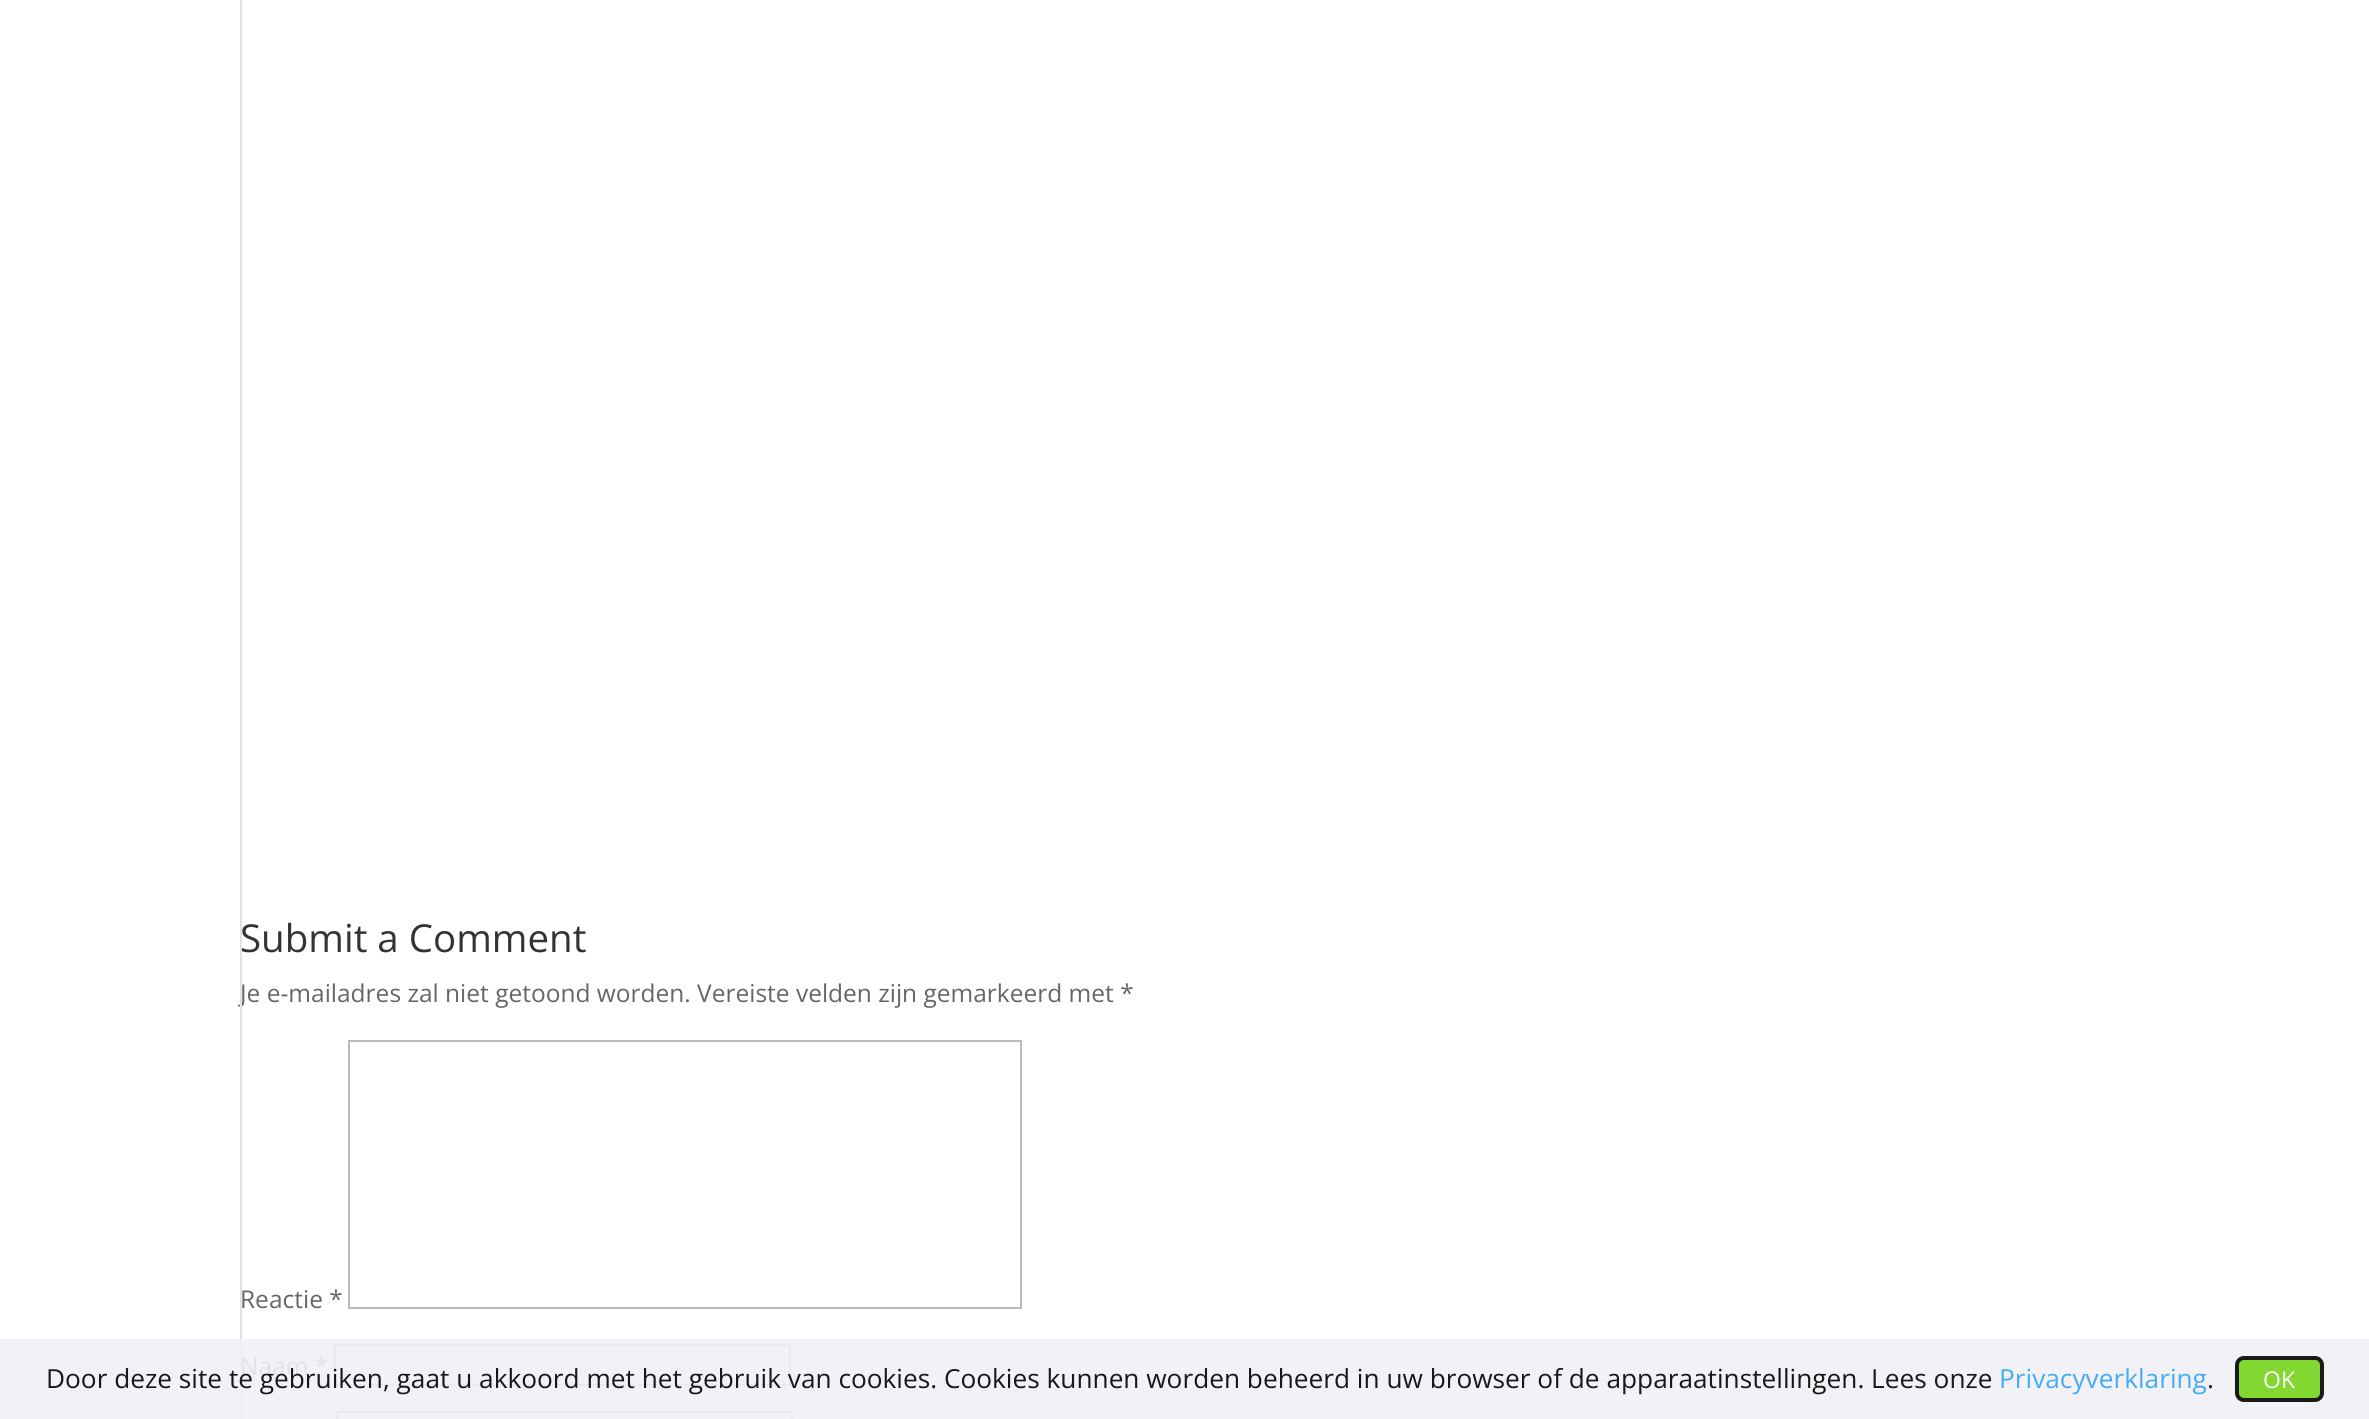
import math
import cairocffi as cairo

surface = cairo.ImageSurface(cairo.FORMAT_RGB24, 2369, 1419)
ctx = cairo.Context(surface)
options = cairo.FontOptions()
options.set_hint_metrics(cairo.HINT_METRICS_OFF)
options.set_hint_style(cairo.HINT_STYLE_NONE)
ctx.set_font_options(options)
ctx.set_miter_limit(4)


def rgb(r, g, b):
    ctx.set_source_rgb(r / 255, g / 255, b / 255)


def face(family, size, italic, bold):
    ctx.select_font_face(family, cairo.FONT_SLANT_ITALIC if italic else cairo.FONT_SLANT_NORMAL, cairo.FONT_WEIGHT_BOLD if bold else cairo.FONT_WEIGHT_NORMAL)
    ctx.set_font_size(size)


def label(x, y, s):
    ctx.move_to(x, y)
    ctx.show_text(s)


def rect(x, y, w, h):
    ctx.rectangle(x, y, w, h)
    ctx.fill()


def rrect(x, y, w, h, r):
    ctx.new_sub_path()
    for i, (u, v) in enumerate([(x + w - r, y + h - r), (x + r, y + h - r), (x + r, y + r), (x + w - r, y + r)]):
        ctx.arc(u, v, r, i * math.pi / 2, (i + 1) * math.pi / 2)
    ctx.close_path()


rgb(255, 255, 255)
ctx.paint()
rgb(242, 242, 246)
rect(0, 1339, 2369, 80)
face('Open Sans', 38.5, 0, 0)
rgb(51, 51, 51)
label(240, 952, 'Submit a Comment')
face('Open Sans', 24.5, 0, 0)
rgb(102, 102, 102)
label(240, 1002, 'Je e-mailadres zal niet getoond worden. Vereiste velden zijn gemarkeerd met *')
rgb(226, 226, 226)
rect(240, 0, 2, 1339)
rgb(239, 239, 243)
rect(240, 1339, 2, 80)
rgb(102, 102, 102)
label(240, 1308, 'Reactie *')
ctx.rectangle(349, 1041, 672, 267)
rgb(187, 187, 187)
ctx.stroke()
rgb(226, 226, 231)
label(240, 1375, 'Naam *')
ctx.rectangle(335, 1345, 455, 40)
rgb(235, 235, 239)
ctx.stroke()
ctx.rectangle(337, 1412, 455, 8)
ctx.stroke()
face('Open Sans', 26.25, 0, 0)
rgb(24, 24, 25)
label(46, 1388, 'Door deze site te gebruiken, gaat u akkoord met het gebruik van cookies. Cookies kunnen worden beheerd in uw browser of de apparaatinstellingen. Lees onze')
rgb(67, 172, 243)
label(1999, 1388, 'Privacyverklaring')
rgb(24, 24, 25)
label(2207, 1388, '.')
rgb(130, 216, 48)
rrect(2237, 1358, 85, 42, 7)
ctx.fill_preserve()
rgb(26, 26, 26)
ctx.set_line_width(4)
ctx.stroke()
face('Open Sans', 23, 0, 0)
rgb(255, 255, 255)
label(2263, 1388, 'OK')
surface.write_to_png('render.png')
